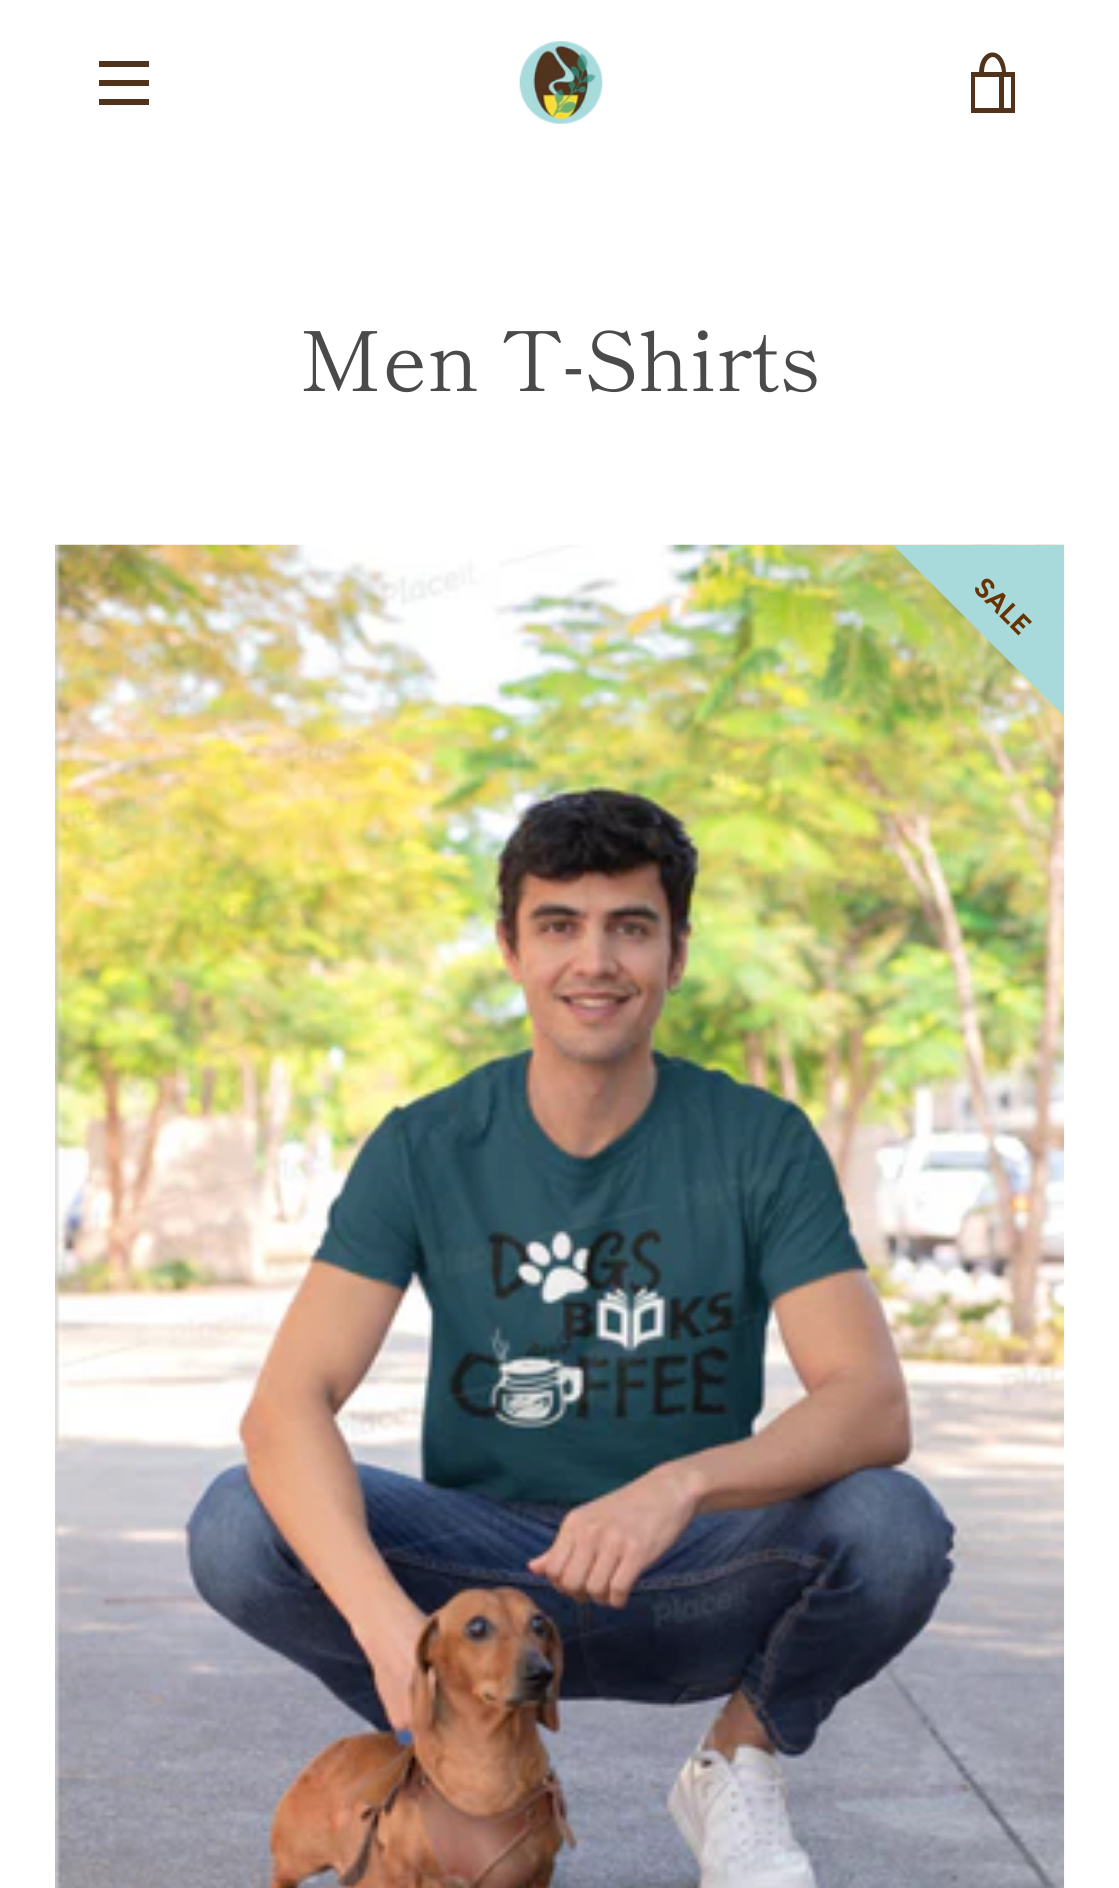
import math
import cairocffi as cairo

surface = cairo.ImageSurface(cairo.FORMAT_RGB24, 1119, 1888)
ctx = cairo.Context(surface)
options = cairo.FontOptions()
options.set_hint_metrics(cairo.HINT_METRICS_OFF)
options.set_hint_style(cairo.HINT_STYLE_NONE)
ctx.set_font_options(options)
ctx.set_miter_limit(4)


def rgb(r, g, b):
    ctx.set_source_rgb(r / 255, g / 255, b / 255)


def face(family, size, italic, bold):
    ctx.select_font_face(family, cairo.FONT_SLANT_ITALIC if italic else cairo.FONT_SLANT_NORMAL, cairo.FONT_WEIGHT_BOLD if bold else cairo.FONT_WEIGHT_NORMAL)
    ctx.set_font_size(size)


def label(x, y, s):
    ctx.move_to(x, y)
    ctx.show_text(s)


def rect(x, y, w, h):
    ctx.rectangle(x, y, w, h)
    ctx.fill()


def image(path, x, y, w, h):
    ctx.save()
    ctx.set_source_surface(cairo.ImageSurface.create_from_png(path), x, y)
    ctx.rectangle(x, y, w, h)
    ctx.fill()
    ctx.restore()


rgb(255, 255, 255)
ctx.paint()
rgb(81, 50, 27)
rect(99, 61, 50, 6)
rect(99, 80, 50, 6)
rect(99, 99, 50, 6)
image('image0.png', 519, 41, 84, 83)
ctx.new_path()
ctx.move_to(1006, 72)
ctx.curve_to(1005, 46, 980, 46, 979, 72)
ctx.line_to(971, 72)
ctx.line_to(971, 113)
ctx.line_to(1015, 113)
ctx.line_to(1015, 72)
ctx.close_path()
ctx.move_to(993, 57)
ctx.curve_to(997, 57, 1001, 64, 1002, 72)
ctx.line_to(984, 72)
ctx.curve_to(984, 64, 988, 57, 993, 57)
ctx.close_path()
ctx.move_to(975, 108)
ctx.line_to(975, 77)
ctx.line_to(999, 77)
ctx.line_to(999, 108)
ctx.close_path()
ctx.move_to(1011, 108)
ctx.line_to(1004, 108)
ctx.line_to(1004, 77)
ctx.line_to(1011, 77)
ctx.close_path()
ctx.fill()
face('Shippori Mincho', 82.5, 0, 0)
rgb(74, 74, 74)
label(299, 391, 'Men T-Shirts')
image('image1.png', 55, 544, 1010, 1344)
ctx.save()
ctx.rectangle(55, 545, 1009, 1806)
ctx.clip()
rgb(168, 218, 220)
ctx.new_path()
ctx.move_to(901, 319)
ctx.line_to(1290, 708)
ctx.line_to(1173, 825)
ctx.line_to(784, 436)
ctx.close_path()
ctx.fill()
ctx.restore()
face('Figtree', 27.5, 0, 1)
rgb(102, 51, 0)
ctx.save()
ctx.translate(972, 589)
ctx.rotate(45 * math.pi / 180)
label(0, 0, 'SALE')
ctx.restore()
surface.write_to_png('render.png')
